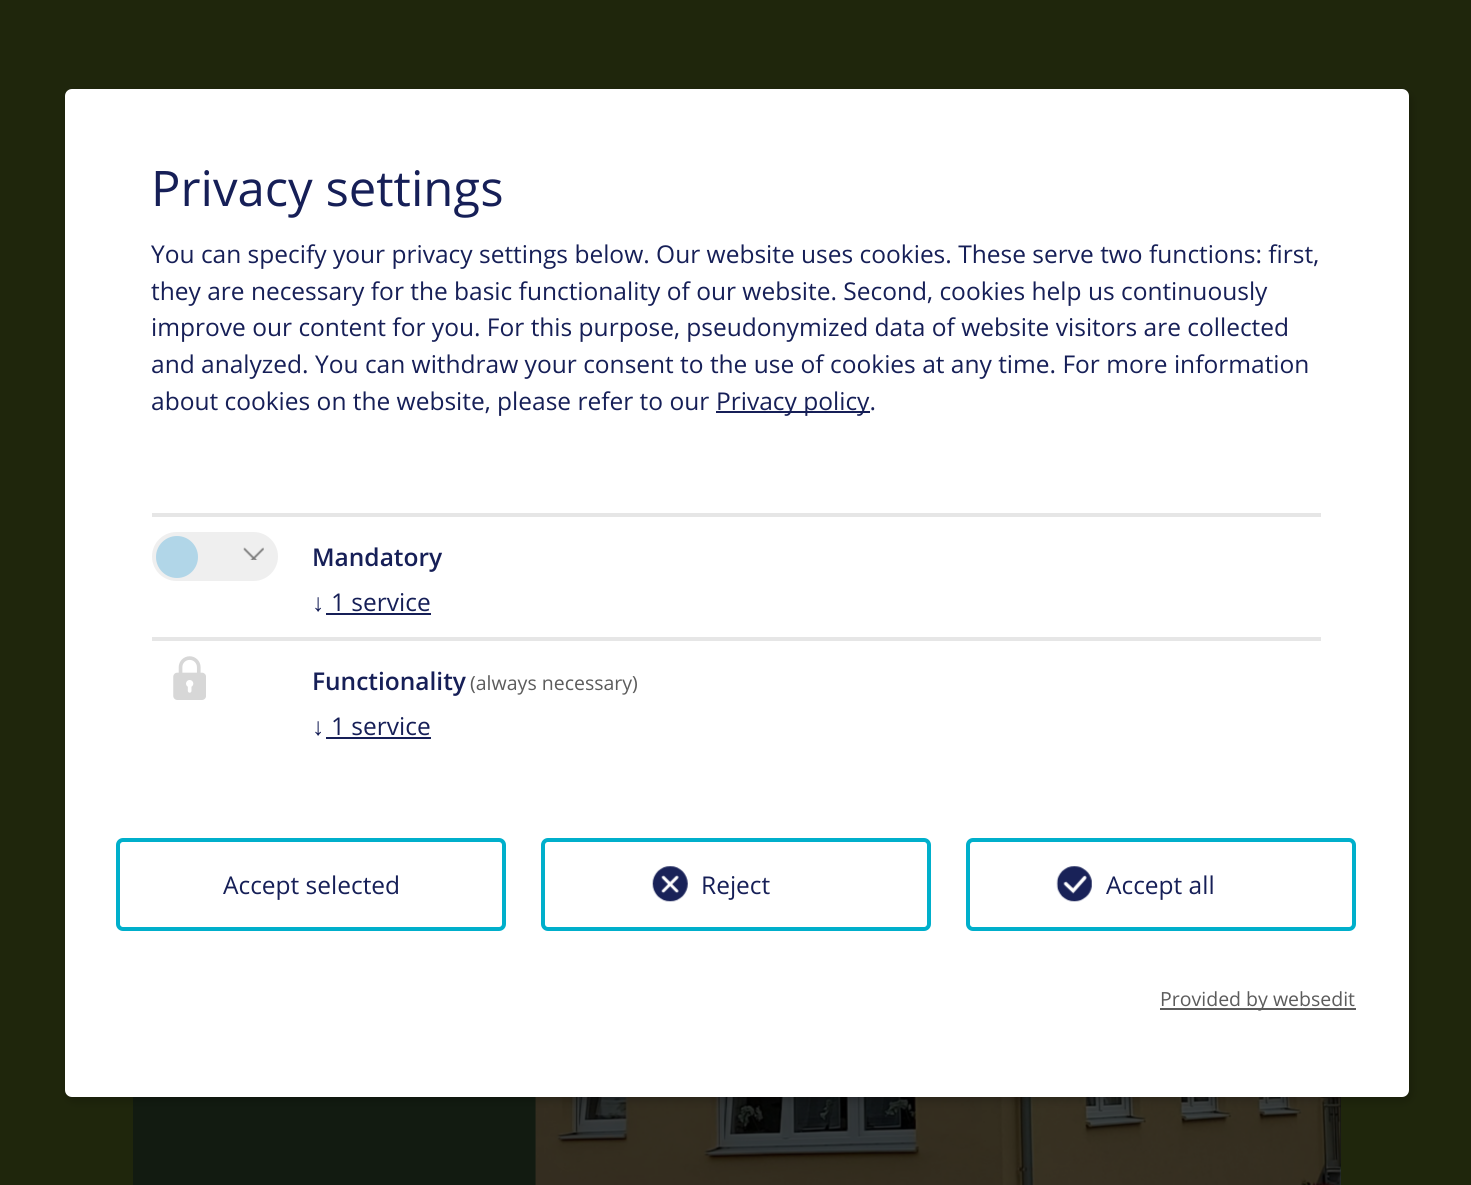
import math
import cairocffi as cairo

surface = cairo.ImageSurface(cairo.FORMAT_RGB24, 1471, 1185)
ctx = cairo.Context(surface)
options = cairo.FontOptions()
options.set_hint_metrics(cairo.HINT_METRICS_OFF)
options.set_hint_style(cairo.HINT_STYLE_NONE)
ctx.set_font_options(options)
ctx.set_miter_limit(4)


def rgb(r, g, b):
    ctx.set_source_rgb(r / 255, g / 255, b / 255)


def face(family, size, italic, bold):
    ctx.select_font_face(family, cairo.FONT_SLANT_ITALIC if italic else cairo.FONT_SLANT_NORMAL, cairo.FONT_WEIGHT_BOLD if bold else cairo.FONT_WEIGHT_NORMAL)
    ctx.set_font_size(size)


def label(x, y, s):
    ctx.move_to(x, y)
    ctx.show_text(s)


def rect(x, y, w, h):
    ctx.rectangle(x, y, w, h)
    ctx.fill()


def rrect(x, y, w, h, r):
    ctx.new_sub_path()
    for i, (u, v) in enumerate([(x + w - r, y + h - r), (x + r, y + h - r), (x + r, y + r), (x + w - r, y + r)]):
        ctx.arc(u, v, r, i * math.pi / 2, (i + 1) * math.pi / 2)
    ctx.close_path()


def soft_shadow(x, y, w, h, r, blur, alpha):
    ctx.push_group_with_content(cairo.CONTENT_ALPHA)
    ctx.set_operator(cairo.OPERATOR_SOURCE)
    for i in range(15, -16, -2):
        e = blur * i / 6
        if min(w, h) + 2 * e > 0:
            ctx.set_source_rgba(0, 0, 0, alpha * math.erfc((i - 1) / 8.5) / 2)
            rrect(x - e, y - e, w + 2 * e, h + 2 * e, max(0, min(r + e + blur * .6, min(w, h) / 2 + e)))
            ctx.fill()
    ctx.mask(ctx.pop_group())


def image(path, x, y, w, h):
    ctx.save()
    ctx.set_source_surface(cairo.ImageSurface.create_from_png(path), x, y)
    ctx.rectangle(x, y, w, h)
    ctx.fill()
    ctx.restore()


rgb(31, 38, 12)
ctx.paint()
rgb(18, 27, 17)
rect(133, 1097, 403, 88)
image('image4.png', 535, 1097, 806, 88)
image('image5.png', 1339, 1097, 2, 88)
rgb(0, 0, 0)
soft_shadow(67, 93, 1344, 1008, 7, 4.5, 0.2)
rgb(255, 255, 255)
rrect(65, 89, 1344, 1008, 7)
ctx.fill()
face('Open Sans', 49, 0, 0)
rgb(22, 31, 87)
label(151, 206, 'Privacy settings')
face('Open Sans', 24.5, 0, 0)
label(151, 263, 'You can specify your privacy settings below. Our website uses cookies. These serve two functions: first,')
label(151, 300, 'they are necessary for the basic functionality of our website. Second, cookies help us continuously')
label(151, 336, 'improve our content for you. For this purpose, pseudonymized data of website visitors are collected')
label(151, 373, 'and analyzed. You can withdraw your consent to the use of cookies at any time. For more information')
label(151, 410, 'about cookies on the website, please refer to our')
rect(716, 411, 154, 2)
label(716, 410, 'Privacy policy.')
rgb(230, 230, 230)
rect(152, 513, 1169, 4)
rgb(239, 239, 239)
rrect(152, 532, 126, 49, 24.5)
ctx.fill()
rgb(177, 214, 232)
ctx.arc(177, 557, 21, 0, 2 * math.pi)
ctx.fill()
image('image0.png', 243, 547, 21, 13)
face('Open Sans SemiBold', 24.5, 0, 0)
rgb(22, 31, 87)
label(312, 566, 'Mandatory')
face('Liberation Sans', 24.5, 0, 0)
label(312, 611, '↓')
face('Open Sans', 24.5, 0, 0)
label(331, 611, '1 service')
rect(326, 613, 105, 2)
rgb(230, 230, 230)
rect(152, 637, 1169, 4)
image('image1.png', 173, 656, 33, 44)
face('Open Sans SemiBold', 24.5, 0, 0)
rgb(22, 31, 87)
label(312, 690, 'Functionality')
face('Open Sans', 19.5, 0, 0)
rgb(92, 92, 92)
label(470, 690, '(always necessary)')
face('Liberation Sans', 24.5, 0, 0)
rgb(22, 31, 87)
label(312, 735, '↓')
face('Open Sans', 24.5, 0, 0)
label(331, 735, '1 service')
rect(326, 737, 105, 2)
rrect(118, 840, 386, 89, 5)
rgb(0, 175, 203)
ctx.set_line_width(4)
ctx.stroke()
rgb(22, 31, 87)
label(223, 894, 'Accept selected')
rrect(543, 840, 386, 89, 5)
rgb(0, 175, 203)
ctx.stroke()
image('image2.png', 652, 866, 36, 36)
rgb(22, 31, 87)
label(701, 894, 'Reject')
rrect(968, 840, 386, 89, 5)
rgb(0, 175, 203)
ctx.stroke()
image('image3.png', 1056, 866, 36, 36)
rgb(22, 31, 87)
label(1106, 894, 'Accept all')
rgb(92, 92, 92)
rect(1160, 1008, 196, 2)
face('Open Sans', 19.5, 0, 0)
label(1160, 1006, 'Provided by websedit')
surface.write_to_png('render.png')
